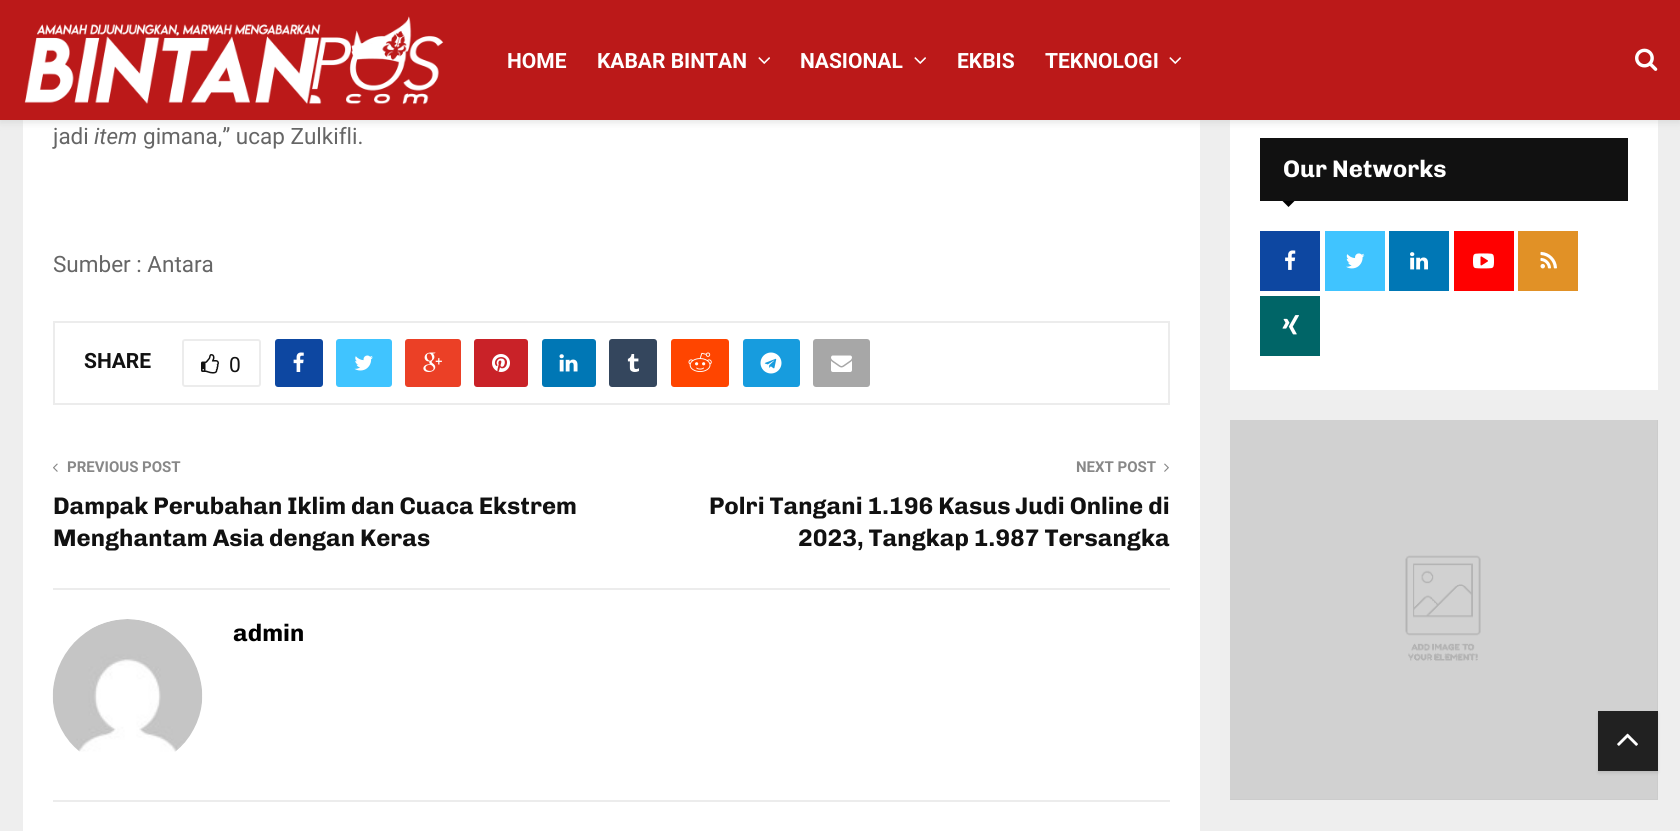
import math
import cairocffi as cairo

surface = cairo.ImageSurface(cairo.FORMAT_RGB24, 1680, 831)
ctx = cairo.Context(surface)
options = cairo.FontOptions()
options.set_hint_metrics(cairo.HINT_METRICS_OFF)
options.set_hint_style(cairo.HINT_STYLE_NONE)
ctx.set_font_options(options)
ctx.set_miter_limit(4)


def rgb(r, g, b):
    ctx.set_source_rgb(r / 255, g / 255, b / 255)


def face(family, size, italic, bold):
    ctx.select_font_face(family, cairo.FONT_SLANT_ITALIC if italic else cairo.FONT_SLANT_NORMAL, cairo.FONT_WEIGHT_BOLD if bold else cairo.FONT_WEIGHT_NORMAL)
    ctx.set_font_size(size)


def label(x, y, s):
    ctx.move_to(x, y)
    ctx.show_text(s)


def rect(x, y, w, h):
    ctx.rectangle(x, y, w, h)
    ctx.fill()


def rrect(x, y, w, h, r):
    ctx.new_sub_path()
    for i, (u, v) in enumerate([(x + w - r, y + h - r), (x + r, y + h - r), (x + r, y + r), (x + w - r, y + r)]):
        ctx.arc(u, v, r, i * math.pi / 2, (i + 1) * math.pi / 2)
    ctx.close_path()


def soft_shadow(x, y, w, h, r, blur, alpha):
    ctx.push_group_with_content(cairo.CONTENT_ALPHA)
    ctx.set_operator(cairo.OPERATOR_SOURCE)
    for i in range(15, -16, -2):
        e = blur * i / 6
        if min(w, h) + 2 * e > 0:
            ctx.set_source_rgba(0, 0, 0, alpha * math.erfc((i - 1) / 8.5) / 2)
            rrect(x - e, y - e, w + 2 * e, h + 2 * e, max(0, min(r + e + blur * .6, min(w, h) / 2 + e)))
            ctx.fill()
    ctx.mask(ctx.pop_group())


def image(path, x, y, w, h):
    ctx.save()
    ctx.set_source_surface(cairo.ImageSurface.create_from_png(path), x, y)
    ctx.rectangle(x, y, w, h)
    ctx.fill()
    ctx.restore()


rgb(238, 238, 238)
ctx.paint()
rgb(255, 255, 255)
rect(23, 120, 1177, 711)
rect(1230, 120, 428, 270)
rgb(190, 190, 190)
soft_shadow(0, 2, 1680, 120, 0, 4, 0.46)
rgb(187, 25, 25)
rect(0, 0, 1680, 120)
image('image0.png', 24, 16, 420, 89)
face('Roboto', 21, 0, 1)
rgb(255, 255, 255)
label(507, 68, 'HOME')
label(597, 68, 'KABAR BINTAN')
image('image1.png', 758, 57, 12, 7)
label(800, 68, 'NASIONAL')
image('image1.png', 914, 57, 12, 7)
label(957, 68, 'EKBIS')
label(1045, 68, 'TEKNOLOGI')
image('image1.png', 1169, 57, 12, 7)
image('image2.png', 1635, 48, 23, 23)
face('Roboto', 22.5, 0, 0)
rgb(102, 102, 102)
label(53, 144, 'jadi')
face('Roboto', 22.5, 1, 0)
label(94, 144, 'item')
face('Roboto', 22.5, 0, 0)
label(143, 144, 'gimana,” ucap Zulkifli.')
label(53, 272, 'Sumber : Antara')
ctx.rectangle(54, 322, 1115, 82)
rgb(236, 236, 236)
ctx.stroke()
face('Roboto', 21, 0, 1)
rgb(17, 17, 17)
label(84, 368, 'SHARE')
rrect(183, 340, 77, 46, 2)
rgb(236, 236, 236)
ctx.stroke()
image('image3.png', 201, 354, 18, 20)
face('Roboto', 21, 0, 0)
rgb(17, 17, 17)
label(229, 372, '0')
rgb(13, 71, 161)
rrect(275, 339, 48, 48, 3)
ctx.fill()
image('image4.png', 293, 352, 11, 20)
rgb(64, 196, 255)
rrect(336, 339, 56, 48, 3)
ctx.fill()
image('image5.png', 354, 355, 19, 16)
rgb(235, 64, 38)
rrect(405, 339, 56, 48, 3)
ctx.fill()
image('image6.png', 423, 352, 19, 20)
rgb(201, 34, 40)
rrect(474, 339, 54, 48, 3)
ctx.fill()
image('image7.png', 492, 354, 18, 18)
rgb(0, 119, 181)
rrect(542, 339, 54, 48, 3)
ctx.fill()
image('image8.png', 559, 354, 19, 18)
rgb(52, 70, 93)
rrect(609, 339, 48, 48, 3)
ctx.fill()
image('image9.png', 627, 354, 12, 18)
rgb(255, 69, 0)
rrect(671, 339, 58, 48, 3)
ctx.fill()
image('image10.png', 688, 352, 24, 20)
rgb(23, 156, 222)
rrect(743, 339, 57, 48, 3)
ctx.fill()
image('image11.png', 760, 352, 22, 22)
rgb(167, 167, 167)
rrect(813, 339, 57, 48, 3)
ctx.fill()
image('image12.png', 831, 355, 21, 17)
rgb(236, 236, 236)
rect(53, 588, 1117, 2)
image('image13.png', 53, 463, 5, 9)
face('Roboto', 15, 0, 1)
rgb(136, 136, 136)
label(67, 472, 'PREVIOUS POST')
face('Chivo', 24, 0, 1)
rgb(17, 17, 17)
label(53, 514, 'Dampak Perubahan Iklim dan Cuaca Ekstrem')
label(53, 546, 'Menghantam Asia dengan Keras')
face('Roboto', 15, 0, 1)
rgb(136, 136, 136)
label(1076, 472, 'NEXT POST')
image('image14.png', 1164, 463, 5, 9)
face('Chivo', 24, 0, 1)
rgb(17, 17, 17)
label(709, 514, 'Polri Tangani 1.196 Kasus Judi Online di')
label(798, 546, '2023, Tangkap 1.987 Tersangka')
rgb(236, 236, 236)
rect(53, 800, 1117, 2)
image('image15.png', 52, 619, 151, 133)
rgb(0, 0, 0)
label(233, 641, 'admin')
rgb(17, 17, 17)
rect(1260, 138, 368, 63)
rgb(255, 255, 255)
label(1283, 177, 'Our Networks')
rgb(0, 0, 0)
ctx.new_path()
ctx.move_to(1282.5, 201)
ctx.line_to(1294.5, 201)
ctx.line_to(1288.5, 207)
ctx.close_path()
ctx.fill()
rgb(13, 71, 161)
rect(1260, 231, 60, 60)
image('image16.png', 1285, 250, 11, 20)
rgb(64, 196, 255)
rect(1325, 231, 60, 60)
image('image17.png', 1346, 253, 19, 16)
rgb(0, 119, 181)
rect(1389, 231, 60, 60)
image('image18.png', 1410, 252, 18, 18)
rgb(255, 0, 0)
rect(1454, 231, 60, 60)
image('image19.png', 1473, 253, 21, 16)
rgb(225, 145, 38)
rect(1518, 231, 60, 60)
image('image20.png', 1540, 251, 17, 18)
rgb(0, 101, 103)
rect(1260, 296, 60, 60)
image('image21.png', 1282, 315, 17, 20)
rgb(204, 204, 204)
rect(1230, 420, 428, 380)
image('image22.png', 1230, 420, 427, 379)
rgb(0, 0, 0)
soft_shadow(1598, 713, 60, 60, 0, 1.5, 0.1)
rgb(33, 33, 33)
rect(1598, 711, 60, 60)
image('image23.png', 1617, 733, 21, 13)
surface.write_to_png('render.png')
